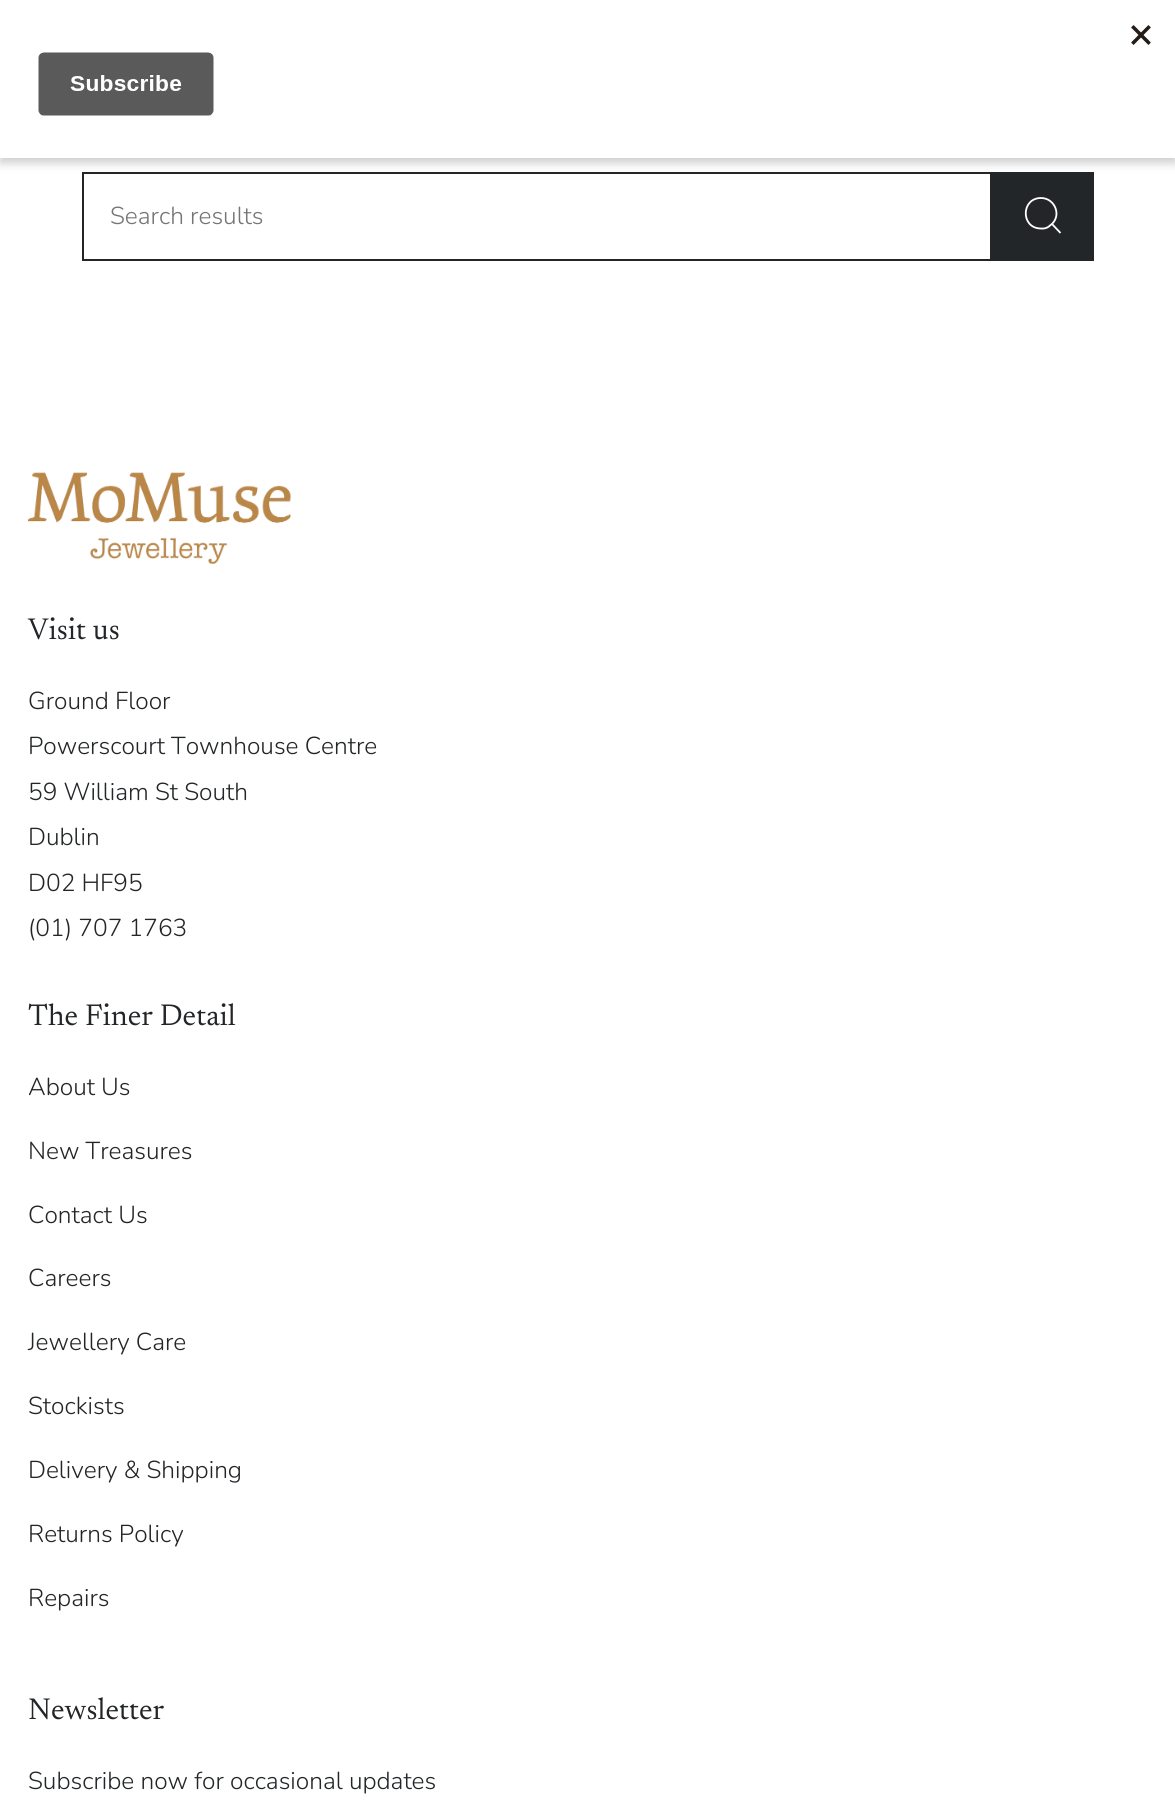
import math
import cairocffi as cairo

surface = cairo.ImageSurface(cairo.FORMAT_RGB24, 1175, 1803)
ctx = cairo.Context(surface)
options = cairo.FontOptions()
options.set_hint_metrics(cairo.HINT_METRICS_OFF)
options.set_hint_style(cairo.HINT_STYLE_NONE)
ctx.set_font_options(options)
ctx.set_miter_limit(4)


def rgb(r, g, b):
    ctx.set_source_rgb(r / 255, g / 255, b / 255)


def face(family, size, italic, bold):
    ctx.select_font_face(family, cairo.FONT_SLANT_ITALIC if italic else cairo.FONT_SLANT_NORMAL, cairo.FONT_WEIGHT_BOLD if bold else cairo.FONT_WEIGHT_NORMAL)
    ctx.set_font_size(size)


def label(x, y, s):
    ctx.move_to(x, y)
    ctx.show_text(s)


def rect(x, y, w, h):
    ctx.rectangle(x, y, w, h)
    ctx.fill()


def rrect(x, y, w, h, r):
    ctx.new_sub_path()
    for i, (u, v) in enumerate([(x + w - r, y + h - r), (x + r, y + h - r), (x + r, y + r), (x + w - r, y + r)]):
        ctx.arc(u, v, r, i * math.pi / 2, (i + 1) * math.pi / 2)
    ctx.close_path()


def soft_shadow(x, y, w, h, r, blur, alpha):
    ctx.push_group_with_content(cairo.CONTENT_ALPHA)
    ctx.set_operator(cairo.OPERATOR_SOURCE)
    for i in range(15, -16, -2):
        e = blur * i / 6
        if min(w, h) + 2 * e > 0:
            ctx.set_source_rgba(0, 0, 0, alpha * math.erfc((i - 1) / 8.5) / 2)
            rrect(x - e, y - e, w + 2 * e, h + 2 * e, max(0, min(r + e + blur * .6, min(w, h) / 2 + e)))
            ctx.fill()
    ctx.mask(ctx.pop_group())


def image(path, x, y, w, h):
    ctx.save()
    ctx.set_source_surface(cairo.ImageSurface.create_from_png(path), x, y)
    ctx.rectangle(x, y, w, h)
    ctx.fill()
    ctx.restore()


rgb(255, 255, 255)
ctx.paint()
ctx.rectangle(83, 173, 908, 87)
rgb(35, 38, 40)
ctx.stroke()
rect(992, 172, 102, 89)
rgb(0, 0, 0)
soft_shadow(0, 5, 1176, 158, 0, 5, 0.2)
rgb(255, 255, 255)
rect(0, 0, 1175, 158)
image('image0.png', 38, 25, 1113, 91)
face('Nunito Light', 24.5, 0, 0)
rgb(117, 117, 117)
label(110, 224, 'Search results')
ctx.new_path()
ctx.move_to(1041, 198)
ctx.curve_to(1055.5, 198, 1062.5, 217, 1050, 225.5)
ctx.curve_to(1047.5, 228, 1044, 229, 1040.5, 228.5)
ctx.curve_to(1020.5, 228, 1021, 198, 1041, 198)
ctx.close_path()
ctx.move_to(1052, 224)
ctx.line_to(1060.5, 233)
rgb(255, 255, 255)
ctx.set_line_width(1.8)
ctx.stroke()
image('image1.png', 28, 472, 263, 92)
face('Newsreader', 30.5, 0, 0)
rgb(35, 38, 40)
label(28, 639, 'Visit us')
face('Nunito Light', 24.5, 0, 0)
label(28, 709, 'Ground Floor')
label(28, 754, 'Powerscourt Townhouse Centre')
label(28, 800, '59 William St South')
label(28, 845, 'Dublin')
label(28, 891, 'D02 HF95')
label(28, 936, '(01) 707 1763')
face('Newsreader', 30.5, 0, 0)
label(28, 1025, 'The Finer Detail')
face('Nunito Light', 24.5, 0, 0)
label(28, 1095, 'About Us')
label(28, 1159, 'New Treasures')
label(28, 1223, 'Contact Us')
label(28, 1286, 'Careers')
label(28, 1350, 'Jewellery Care')
label(28, 1414, 'Stockists')
label(28, 1478, 'Delivery & Shipping')
label(28, 1542, 'Returns Policy')
label(28, 1606, 'Repairs')
face('Newsreader', 30.5, 0, 0)
label(28, 1719, 'Newsletter')
face('Nunito Light', 24.5, 0, 0)
label(28, 1789, 'Subscribe now for occasional updates')
surface.write_to_png('render.png')
